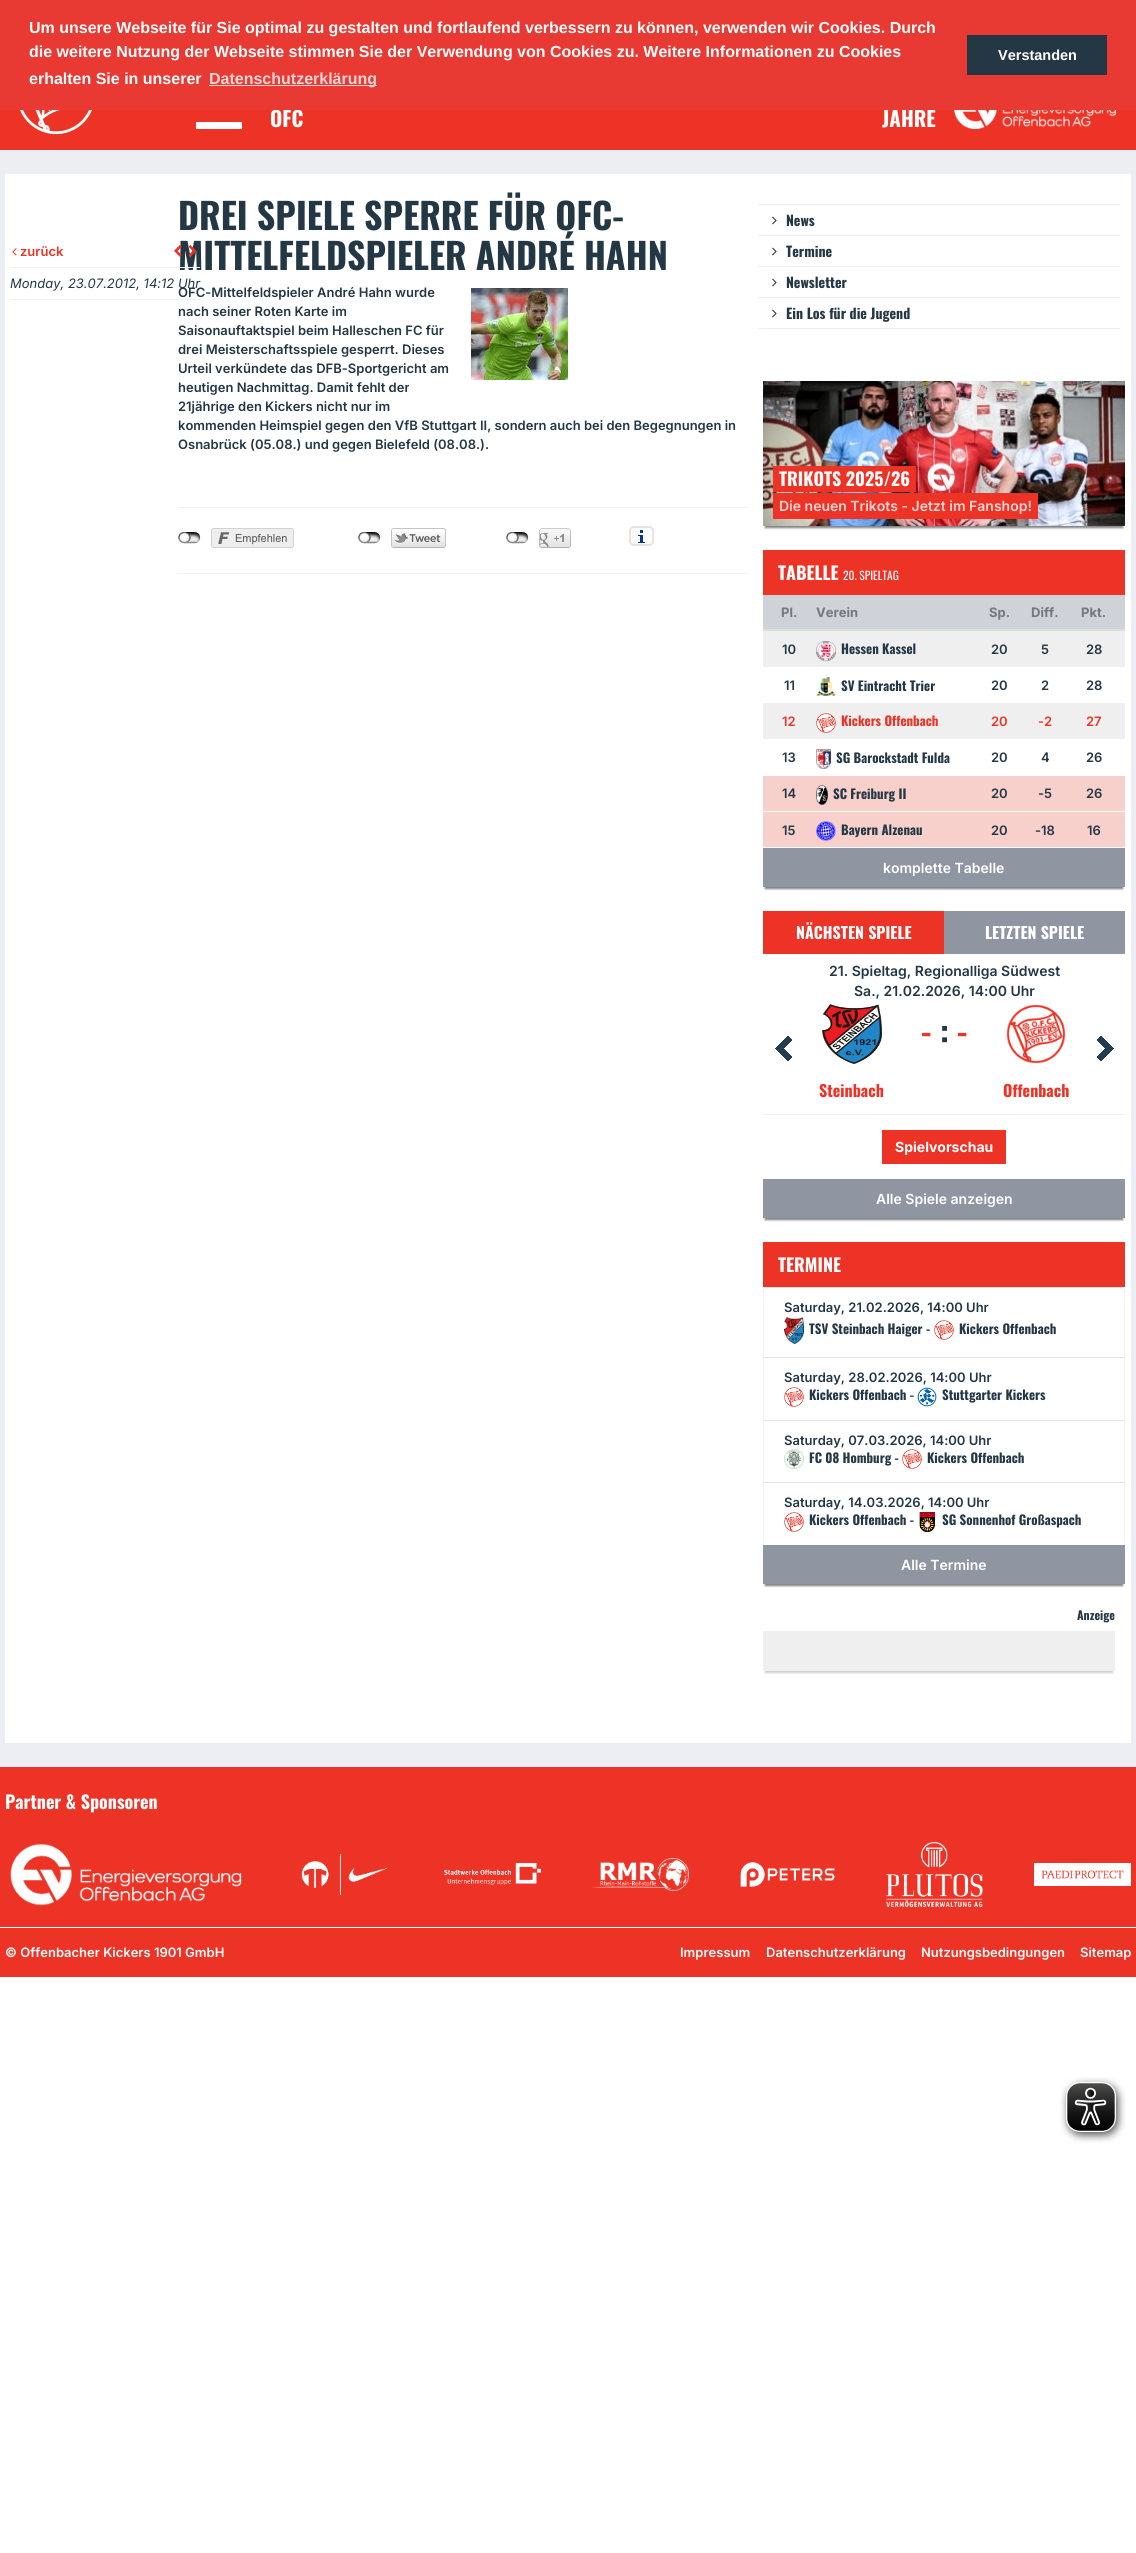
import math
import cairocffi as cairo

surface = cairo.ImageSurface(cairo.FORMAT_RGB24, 1136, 2553)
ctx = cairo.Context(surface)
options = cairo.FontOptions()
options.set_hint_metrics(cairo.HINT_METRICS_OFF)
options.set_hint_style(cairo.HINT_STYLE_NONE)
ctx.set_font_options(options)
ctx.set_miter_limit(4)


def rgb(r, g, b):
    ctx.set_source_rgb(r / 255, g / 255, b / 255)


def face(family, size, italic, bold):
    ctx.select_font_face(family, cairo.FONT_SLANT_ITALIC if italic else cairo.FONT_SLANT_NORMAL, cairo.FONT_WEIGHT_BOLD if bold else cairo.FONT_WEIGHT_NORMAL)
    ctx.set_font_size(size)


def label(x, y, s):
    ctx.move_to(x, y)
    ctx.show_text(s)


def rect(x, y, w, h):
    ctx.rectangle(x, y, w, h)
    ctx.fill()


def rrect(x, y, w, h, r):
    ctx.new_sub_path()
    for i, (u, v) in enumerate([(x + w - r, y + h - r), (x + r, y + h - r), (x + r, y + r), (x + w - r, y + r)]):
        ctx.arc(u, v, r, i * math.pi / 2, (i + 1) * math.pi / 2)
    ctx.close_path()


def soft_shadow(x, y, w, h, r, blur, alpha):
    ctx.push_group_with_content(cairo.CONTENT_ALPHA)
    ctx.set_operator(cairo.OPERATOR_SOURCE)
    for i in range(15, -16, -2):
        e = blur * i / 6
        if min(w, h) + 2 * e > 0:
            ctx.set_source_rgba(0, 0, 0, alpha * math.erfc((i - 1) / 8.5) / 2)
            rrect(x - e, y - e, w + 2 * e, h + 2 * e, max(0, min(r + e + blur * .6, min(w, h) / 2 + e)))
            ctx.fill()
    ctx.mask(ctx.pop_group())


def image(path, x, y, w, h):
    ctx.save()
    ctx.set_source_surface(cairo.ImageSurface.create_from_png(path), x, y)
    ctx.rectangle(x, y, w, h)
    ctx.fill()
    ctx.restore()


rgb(255, 255, 255)
ctx.paint()
rgb(237, 51, 38)
rect(0, 110, 1136, 40)
face('Oswald', 21, 0, 1)
rgb(255, 255, 255)
label(270, 127, 'OFC')
rgb(232, 57, 50)
rect(0, 0, 1136, 110)
face('Liberation Sans', 16, 0, 1)
rgb(255, 255, 255)
label(29, 33, 'Um unsere Webseite für Sie optimal zu gestalten und fortlaufend verbessern zu können, verwenden wir Cookies. Durch')
label(29, 57, 'die weitere Nutzung der Webseite stimmen Sie der Verwendung von Cookies zu. Weitere Informationen zu Cookies')
label(29, 84, 'erhalten Sie in unserer')
rgb(250, 215, 214)
rect(209, 85, 168, 1)
rgb(251, 214, 212)
label(209, 84, 'Datenschutzerklärung')
rgb(36, 55, 69)
rect(967, 35, 140, 40)
face('Liberation Sans', 14.5, 0, 1)
rgb(255, 255, 255)
label(998, 60, 'Verstanden')
image('image0.png', 20, 110, 72, 25)
rect(196, 122, 46, 7)
face('Oswald', 21, 0, 1)
label(882, 127, 'JAHRE')
image('image1.png', 954, 110, 162, 19)
rgb(236, 238, 243)
rect(0, 150, 1136, 1617)
rgb(255, 255, 255)
rect(5, 174, 1126, 1569)
face('Oswald', 36, 0, 1)
rgb(36, 55, 69)
label(178, 230, 'DREI SPIELE SPERRE FÜR OFC-')
label(178, 270, 'MITTELFELDSPIELER ANDRÉ HAHN')
rgb(239, 239, 239)
rect(10, 267, 190, 1)
image('image2.png', 12, 248, 5, 8)
face('Inter SemiBold', 13, 0, 0)
rgb(237, 51, 38)
label(20, 256, 'zurück')
image('image3.png', 174, 245, 8, 12)
image('image4.png', 188, 245, 9, 12)
rgb(36, 55, 69)
label(178, 297, 'OFC-Mittelfeldspieler André Hahn wurde')
rgb(239, 239, 239)
rect(10, 299, 190, 1)
face('Inter', 13, 1, 0)
rgb(36, 55, 69)
label(10, 288, 'Monday, 23.07.2012, 14:12 Uhr')
face('Inter SemiBold', 13, 0, 0)
label(178, 316, 'nach seiner Roten Karte im')
label(178, 335, 'Saisonauftaktspiel beim Halleschen FC für')
label(178, 354, 'drei Meisterschaftsspiele gesperrt. Dieses')
label(178, 373, 'Urteil verkündete das DFB-Sportgericht am')
label(178, 392, 'heutigen Nachmittag. Damit fehlt der')
label(178, 411, '21jährige den Kickers nicht nur im')
label(178, 430, 'kommenden Heimspiel gegen den VfB Stuttgart II, sondern auch bei den Begegnungen in')
label(178, 449, 'Osnabrück (05.08.) und gegen Bielefeld (08.08.).')
image('image5.png', 471, 288, 97, 92)
rgb(239, 239, 239)
rect(178, 507, 570, 1)
rect(178, 573, 570, 1)
image('image6.png', 178, 532, 23, 12)
image('image7.png', 211, 528, 83, 20)
image('image6.png', 358, 532, 23, 12)
image('image8.png', 391, 528, 55, 20)
image('image6.png', 506, 532, 23, 12)
image('image9.png', 539, 528, 32, 20)
image('image10.png', 638, 530, 7, 13)
rrect(630, 527, 23, 18, 4)
rgb(231, 227, 227)
ctx.stroke()
rgb(236, 238, 243)
rect(758, 204, 362, 1)
image('image11.png', 772, 216, 5, 9)
face('Oswald', 14, 0, 1)
rgb(36, 55, 69)
label(786, 226, 'News')
rgb(236, 238, 243)
rect(758, 235, 362, 1)
image('image11.png', 772, 247, 5, 9)
rgb(36, 55, 69)
label(786, 257, 'Termine')
rgb(236, 238, 243)
rect(758, 266, 362, 1)
image('image11.png', 772, 278, 5, 9)
rgb(36, 55, 69)
label(786, 288, 'Newsletter')
rgb(236, 238, 243)
rect(758, 297, 362, 1)
rect(758, 328, 362, 1)
image('image11.png', 772, 309, 5, 9)
rgb(36, 55, 69)
label(786, 319, 'Ein Los für die Jugend')
rgb(0, 0, 0)
soft_shadow(765, 387, 358, 141, 0, 1, 0.5)
image('image12.png', 763, 381, 362, 145)
rgb(237, 51, 38)
rect(773, 466, 143, 26)
face('Oswald', 18, 0, 1)
rgb(255, 255, 255)
label(779, 486, 'TRIKOTS 2025/26')
rgb(237, 51, 38)
rect(773, 493, 265, 26)
face('Inter SemiBold', 14, 0, 0)
rgb(251, 214, 212)
label(779, 511, 'Die neuen Trikots - Jetzt im Fanshop!')
ctx.save()
ctx.rectangle(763, 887, 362, 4)
ctx.clip()
rgb(0, 0, 0)
soft_shadow(765, 556, 358, 333, 0, 1, 0.5)
ctx.restore()
rgb(237, 51, 38)
rect(763, 550, 362, 45)
face('Oswald', 18, 0, 1)
rgb(255, 255, 255)
label(778, 580, 'TABELLE')
face('Oswald', 11.5, 0, 0)
label(843, 580, '20. SPIELTAG')
rgb(207, 210, 214)
rect(763, 595, 362, 34)
face('Inter', 13, 0, 1)
rgb(112, 120, 129)
label(781, 617, 'Pl.')
label(816, 617, 'Verein')
label(989, 617, 'Sp.')
label(1031, 617, 'Diff.')
rgb(221, 221, 221)
rect(763, 629, 362, 2)
rgb(112, 120, 129)
label(1081, 617, 'Pkt.')
rgb(239, 239, 239)
rect(763, 631, 362, 36)
face('Inter SemiBold', 13, 0, 0)
rgb(36, 55, 69)
label(782, 654, '10')
image('image13.png', 816, 641, 20, 20)
face('Oswald', 13, 0, 1)
label(841, 654, 'Hessen Kassel')
face('Inter SemiBold', 13, 0, 0)
label(991, 654, '20')
label(1041, 654, '5')
label(1086, 654, '28')
label(784, 690, '11')
image('image14.png', 816, 677, 20, 19)
face('Oswald', 13, 0, 1)
label(841, 691, 'SV Eintracht Trier')
face('Inter SemiBold', 13, 0, 0)
label(991, 690, '20')
label(1041, 690, '2')
label(1086, 690, '28')
rgb(239, 239, 239)
rect(763, 703, 362, 36)
rgb(237, 51, 38)
label(782, 726, '12')
image('image15.png', 816, 713, 20, 20)
face('Oswald', 13, 0, 1)
label(841, 726, 'Kickers Offenbach')
face('Inter SemiBold', 13, 0, 0)
label(991, 726, '20')
label(1038, 726, '-2')
label(1086, 726, '27')
rgb(36, 55, 69)
label(782, 762, '13')
image('image16.png', 816, 749, 15, 20)
face('Oswald', 13, 0, 1)
label(836, 763, 'SG Barockstadt Fulda')
face('Inter SemiBold', 13, 0, 0)
label(991, 762, '20')
label(1041, 762, '4')
label(1086, 762, '26')
rgb(247, 207, 203)
rect(763, 776, 362, 35)
rgb(36, 55, 69)
label(782, 798, '14')
image('image17.png', 816, 785, 12, 20)
face('Oswald', 13, 0, 1)
label(833, 799, 'SC Freiburg II')
face('Inter SemiBold', 13, 0, 0)
label(991, 798, '20')
label(1038, 798, '-5')
label(1086, 798, '26')
rgb(247, 207, 203)
rect(763, 812, 362, 35)
rgb(36, 55, 69)
label(782, 835, '15')
image('image18.png', 816, 821, 20, 20)
face('Oswald', 13, 0, 1)
label(841, 835, 'Bayern Alzenau')
face('Inter SemiBold', 13, 0, 0)
label(991, 835, '20')
label(1035, 835, '-18')
label(1087, 835, '16')
rgb(144, 149, 162)
rect(763, 848, 362, 39)
face('Inter SemiBold', 14, 0, 0)
rgb(255, 255, 255)
label(883, 873, 'komplette Tabelle')
ctx.save()
ctx.rectangle(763, 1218, 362, 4)
ctx.clip()
rgb(0, 0, 0)
soft_shadow(765, 917, 358, 303, 0, 1, 0.5)
ctx.restore()
rgb(144, 149, 162)
rect(944, 911, 181, 43)
rgb(237, 51, 38)
rect(763, 911, 181, 43)
face('Oswald', 16, 0, 1)
rgb(255, 255, 255)
label(796, 939, 'NÄCHSTEN SPIELE')
label(985, 939, 'LETZTEN SPIELE')
face('Inter SemiBold', 14, 0, 0)
rgb(36, 55, 69)
label(829, 976, '21. Spieltag, Regionalliga Südwest')
label(854, 996, 'Sa., 21.02.2026, 14:00 Uhr')
face('Oswald', 32, 0, 1)
rgb(237, 51, 38)
label(921, 1044, '-')
rgb(36, 55, 69)
label(940, 1044, ':')
rgb(237, 51, 38)
label(957, 1044, '-')
image('image19.png', 822, 1004, 60, 60)
face('Oswald', 16, 0, 1)
label(819, 1097, 'Steinbach')
image('image20.png', 1006, 1004, 60, 60)
label(1003, 1097, 'Offenbach')
rgb(236, 238, 243)
rect(763, 1114, 362, 1)
rgb(237, 51, 38)
rect(882, 1130, 124, 34)
face('Inter', 14, 0, 1)
rgb(255, 255, 255)
label(895, 1152, 'Spielvorschau')
image('image21.png', 775, 1036, 17, 25)
image('image22.png', 1097, 1036, 17, 25)
rgb(144, 149, 162)
rect(763, 1179, 362, 39)
face('Inter SemiBold', 14, 0, 0)
rgb(255, 255, 255)
label(876, 1204, 'Alle Spiele anzeigen')
ctx.save()
ctx.rectangle(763, 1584, 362, 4)
ctx.clip()
rgb(0, 0, 0)
soft_shadow(765, 1248, 358, 338, 0, 1, 0.5)
ctx.restore()
rgb(237, 51, 38)
rect(763, 1242, 362, 45)
face('Oswald', 18, 0, 1)
rgb(255, 255, 255)
label(778, 1272, 'TERMINE')
rgb(242, 242, 242)
rect(1124, 1287, 1, 258)
rect(763, 1287, 1, 258)
rgb(224, 227, 235)
rect(764, 1287, 360, 1)
face('Inter SemiBold', 13, 0, 0)
rgb(36, 55, 69)
label(784, 1312, 'Saturday, 21.02.2026, 14:00 Uhr')
image('image23.png', 784, 1317, 20, 27)
face('Oswald', 13, 0, 1)
label(809, 1334, 'TSV Steinbach Haiger -')
image('image24.png', 934, 1320, 20, 20)
label(959, 1334, 'Kickers Offenbach')
rgb(224, 227, 235)
rect(764, 1357, 360, 1)
face('Inter SemiBold', 13, 0, 0)
rgb(36, 55, 69)
label(784, 1382, 'Saturday, 28.02.2026, 14:00 Uhr')
image('image24.png', 784, 1387, 20, 20)
face('Oswald', 13, 0, 1)
label(809, 1400, 'Kickers Offenbach -')
image('image25.png', 917, 1387, 20, 20)
label(942, 1400, 'Stuttgarter Kickers')
rgb(224, 227, 235)
rect(764, 1420, 360, 1)
face('Inter SemiBold', 13, 0, 0)
rgb(36, 55, 69)
label(784, 1445, 'Saturday, 07.03.2026, 14:00 Uhr')
image('image26.png', 784, 1449, 20, 20)
face('Oswald', 13, 0, 1)
label(809, 1463, 'FC 08 Homburg -')
image('image27.png', 902, 1449, 20, 20)
label(927, 1463, 'Kickers Offenbach')
rgb(224, 227, 235)
rect(764, 1482, 360, 1)
face('Inter SemiBold', 13, 0, 0)
rgb(36, 55, 69)
label(784, 1507, 'Saturday, 14.03.2026, 14:00 Uhr')
image('image24.png', 784, 1512, 20, 20)
face('Oswald', 13, 0, 1)
label(809, 1525, 'Kickers Offenbach -')
image('image28.png', 919, 1512, 16, 20)
label(942, 1525, 'SG Sonnenhof Großaspach')
rgb(144, 149, 162)
rect(763, 1545, 362, 39)
face('Inter SemiBold', 14, 0, 0)
rgb(255, 255, 255)
label(901, 1570, 'Alle Termine')
face('Oswald', 12, 0, 1)
rgb(36, 55, 69)
label(1077, 1620, 'Anzeige')
rgb(0, 0, 0)
soft_shadow(765, 1637, 348, 36, 0, 1, 0.2)
rgb(239, 239, 239)
rect(763, 1631, 352, 40)
rgb(237, 51, 38)
rect(0, 1767, 1136, 160)
face('Oswald', 18, 0, 1)
rgb(255, 255, 255)
label(5, 1809, 'Partner & Sponsoren')
image('image29.png', 10, 1843, 232, 63)
image('image30.png', 301, 1854, 87, 41)
image('image31.png', 444, 1863, 97, 22)
image('image32.png', 592, 1858, 97, 33)
image('image33.png', 740, 1862, 95, 25)
image('image34.png', 886, 1842, 97, 65)
image('image35.png', 1034, 1863, 97, 23)
rgb(237, 51, 38)
rect(0, 1928, 1136, 49)
face('Inter SemiBold', 13, 0, 0)
rgb(255, 255, 255)
label(5, 1957, '© Offenbacher Kickers 1901 GmbH')
label(680, 1957, 'Impressum')
label(766, 1957, 'Datenschutzerklärung')
label(921, 1957, 'Nutzungsbedingungen')
label(1080, 1957, 'Sitemap')
image('image36.png', 1060, 2077, 66, 66)
surface.write_to_png('render.png')
